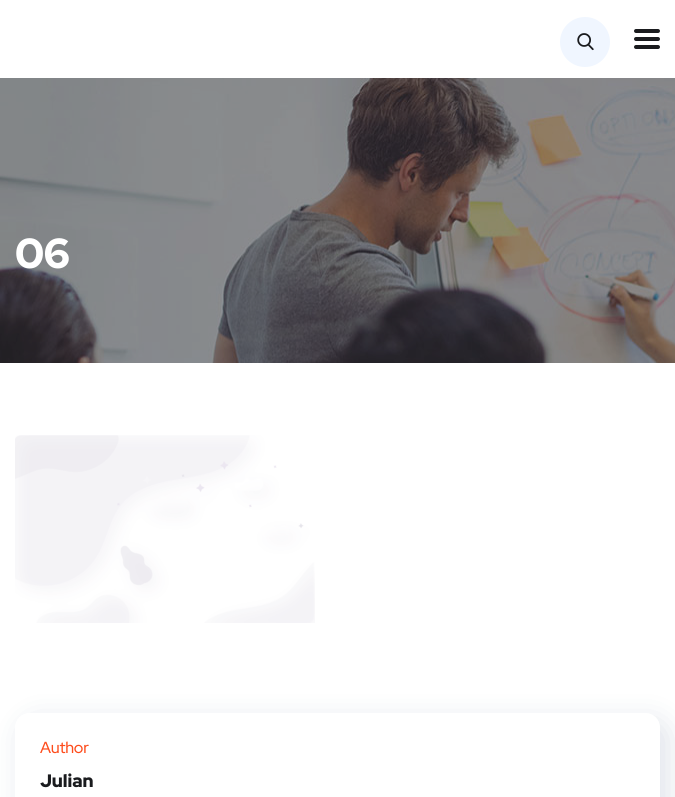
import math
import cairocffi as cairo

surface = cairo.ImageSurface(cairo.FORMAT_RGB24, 675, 797)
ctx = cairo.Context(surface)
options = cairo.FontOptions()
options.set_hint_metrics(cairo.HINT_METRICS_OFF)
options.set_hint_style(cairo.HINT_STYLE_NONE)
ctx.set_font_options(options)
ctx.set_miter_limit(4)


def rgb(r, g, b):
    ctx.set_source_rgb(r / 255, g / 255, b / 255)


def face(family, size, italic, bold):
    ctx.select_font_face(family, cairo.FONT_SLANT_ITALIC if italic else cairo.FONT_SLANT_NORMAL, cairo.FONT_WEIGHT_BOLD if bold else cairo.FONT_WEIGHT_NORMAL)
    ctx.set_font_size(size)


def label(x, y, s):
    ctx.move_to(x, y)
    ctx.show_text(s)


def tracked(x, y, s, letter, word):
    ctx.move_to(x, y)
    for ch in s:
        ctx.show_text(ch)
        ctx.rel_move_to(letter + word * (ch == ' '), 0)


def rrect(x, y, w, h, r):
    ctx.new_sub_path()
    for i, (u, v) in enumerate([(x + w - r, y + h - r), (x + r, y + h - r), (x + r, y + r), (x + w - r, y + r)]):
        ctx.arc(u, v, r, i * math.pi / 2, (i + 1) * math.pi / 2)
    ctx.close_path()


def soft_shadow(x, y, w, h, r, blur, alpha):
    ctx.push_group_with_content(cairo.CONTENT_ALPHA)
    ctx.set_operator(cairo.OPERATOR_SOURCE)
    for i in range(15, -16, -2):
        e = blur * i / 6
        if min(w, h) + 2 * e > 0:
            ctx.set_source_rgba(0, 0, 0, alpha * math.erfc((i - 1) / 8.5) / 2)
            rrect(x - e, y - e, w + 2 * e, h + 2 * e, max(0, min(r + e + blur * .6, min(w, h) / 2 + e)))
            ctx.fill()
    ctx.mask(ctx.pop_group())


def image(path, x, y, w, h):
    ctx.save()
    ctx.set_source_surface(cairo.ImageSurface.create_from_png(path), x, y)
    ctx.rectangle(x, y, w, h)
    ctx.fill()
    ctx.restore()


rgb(255, 255, 255)
ctx.paint()
rgb(240, 246, 255)
ctx.arc(585, 42, 25, 0, 2 * math.pi)
ctx.fill()
image('image0.png', 577, 33, 17, 18)
rgb(26, 27, 30)
rrect(634, 37, 26, 4, 2)
ctx.fill()
rrect(634, 29, 26, 4, 2)
ctx.fill()
rrect(634, 45, 26, 4, 2)
ctx.fill()
image('image1.png', 0, 78, 675, 285)
face('Red Hat Display Black', 42, 0, 0)
rgb(255, 255, 255)
label(15, 268, '06')
image('image2.png', 15, 435, 300, 188)
ctx.save()
ctx.set_fill_rule(cairo.FILL_RULE_EVEN_ODD)
ctx.new_path()
ctx.move_to(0, 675)
ctx.line_to(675, 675)
ctx.line_to(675, 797)
ctx.line_to(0, 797)
ctx.close_path()
ctx.move_to(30, 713)
ctx.line_to(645, 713)
ctx.curve_to(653.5, 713, 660, 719.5, 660, 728)
ctx.line_to(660, 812)
ctx.curve_to(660, 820.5, 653.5, 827, 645, 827)
ctx.line_to(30, 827)
ctx.curve_to(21.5, 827, 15, 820.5, 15, 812)
ctx.line_to(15, 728)
ctx.curve_to(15, 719.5, 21.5, 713, 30, 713)
ctx.close_path()
ctx.clip()
rgb(42, 67, 113)
soft_shadow(23, 721, 645, 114, 15, 15, 0.15)
ctx.restore()
face('Red Hat Display Medium', 16, 0, 0)
rgb(254, 76, 28)
tracked(40, 753, 'Author', -0.25, 0)
face('Red Hat Display Black', 18, 0, 0)
rgb(26, 27, 30)
label(40, 787, 'Julian')
surface.write_to_png('render.png')
